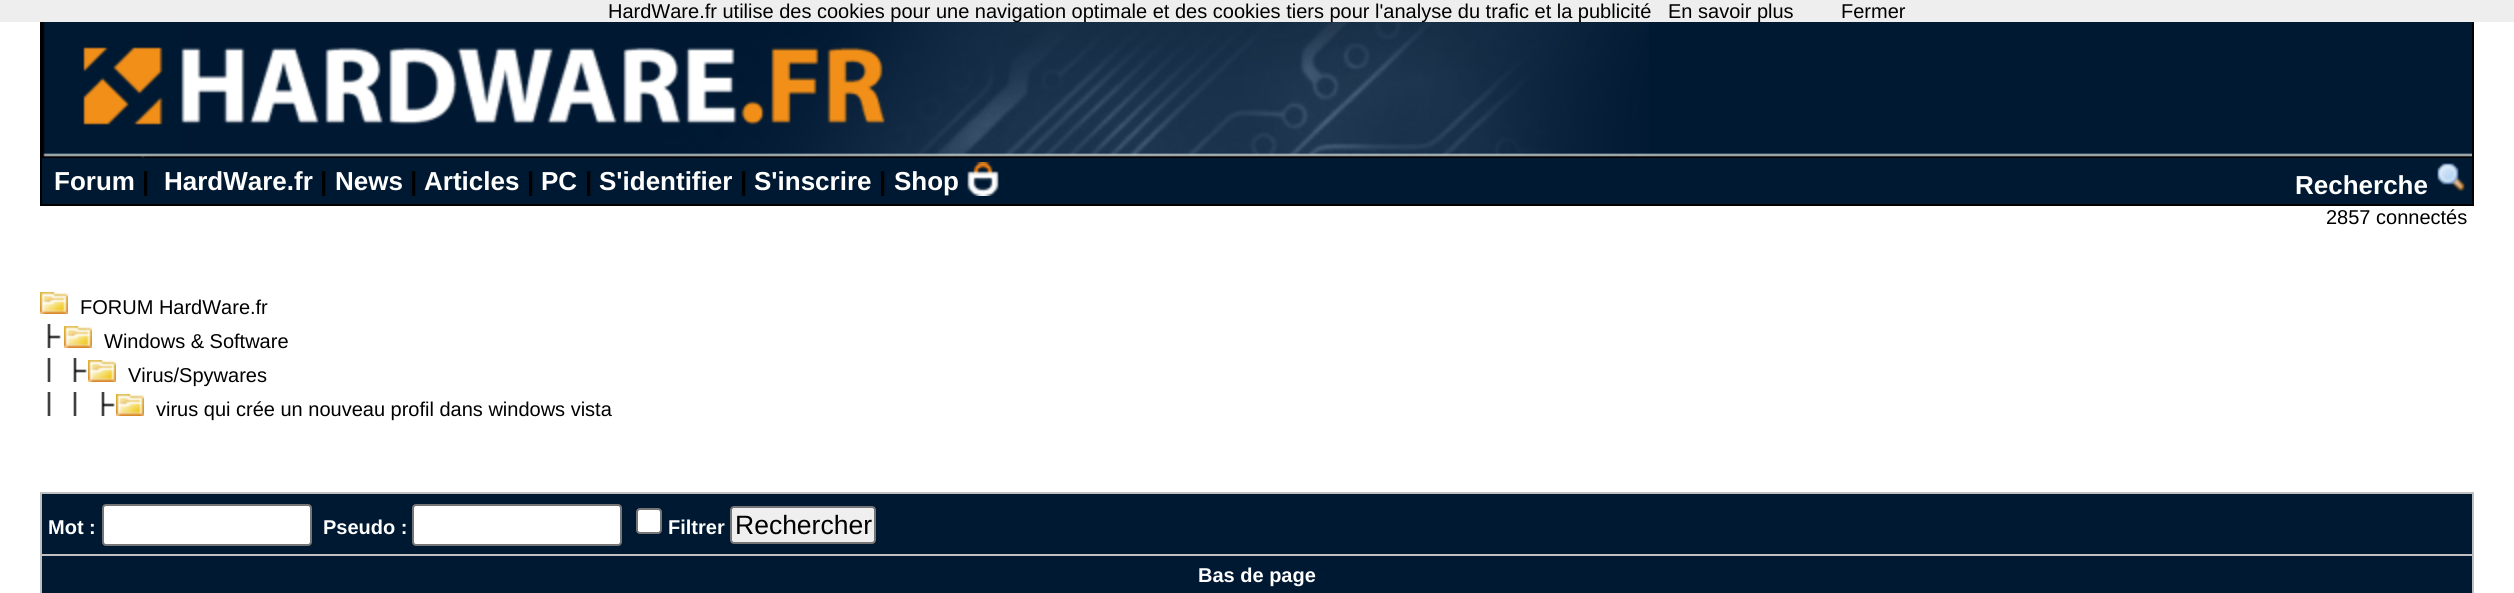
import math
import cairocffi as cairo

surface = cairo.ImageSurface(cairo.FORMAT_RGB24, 2514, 593)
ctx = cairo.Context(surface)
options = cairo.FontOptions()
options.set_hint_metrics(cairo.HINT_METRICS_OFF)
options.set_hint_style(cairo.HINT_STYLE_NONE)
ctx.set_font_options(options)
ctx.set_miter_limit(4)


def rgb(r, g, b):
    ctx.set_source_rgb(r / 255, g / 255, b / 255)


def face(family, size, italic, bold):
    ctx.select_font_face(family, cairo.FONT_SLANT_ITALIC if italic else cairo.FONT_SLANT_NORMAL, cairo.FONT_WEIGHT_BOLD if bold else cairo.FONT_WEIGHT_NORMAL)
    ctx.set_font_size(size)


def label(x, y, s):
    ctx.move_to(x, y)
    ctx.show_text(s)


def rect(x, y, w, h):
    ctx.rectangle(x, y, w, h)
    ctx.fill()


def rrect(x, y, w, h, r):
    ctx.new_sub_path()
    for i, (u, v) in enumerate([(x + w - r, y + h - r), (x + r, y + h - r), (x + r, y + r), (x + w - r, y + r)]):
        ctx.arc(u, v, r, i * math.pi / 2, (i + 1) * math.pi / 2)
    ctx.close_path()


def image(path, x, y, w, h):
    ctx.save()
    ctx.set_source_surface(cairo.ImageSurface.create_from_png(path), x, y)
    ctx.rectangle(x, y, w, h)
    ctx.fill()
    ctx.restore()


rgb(255, 255, 255)
ctx.paint()
rgb(238, 238, 238)
rect(0, 0, 2514, 22)
rgb(0, 0, 0)
rect(40, 22, 2434, 184)
image('image0.png', 1649, 22, 823, 135)
image('image1.png', 42, 22, 1607, 136)
face('Liberation Sans', 20, 0, 0)
label(608, 18, 'HardWare.fr utilise des cookies pour une navigation optimale et des cookies tiers pour l\'analyse du trafic et la publicité')
label(1668, 18, 'En savoir plus')
label(1841, 18, 'Fermer')
rgb(0, 25, 50)
rect(42, 158, 2430, 46)
face('Liberation Sans', 26, 0, 1)
rgb(255, 255, 255)
label(54, 190, 'Forum')
rgb(0, 0, 0)
label(142, 190, '|')
rgb(255, 255, 255)
label(164, 190, 'HardWare.fr')
rgb(0, 0, 0)
label(320, 190, '|')
rgb(255, 255, 255)
label(335, 190, 'News')
rgb(0, 0, 0)
label(410, 190, '|')
rgb(255, 255, 255)
label(424, 190, 'Articles')
rgb(0, 0, 0)
label(527, 190, '|')
rgb(255, 255, 255)
label(541, 190, 'PC')
rgb(0, 0, 0)
label(585, 190, '|')
rgb(255, 255, 255)
label(599, 190, 'S\'identifier')
rgb(0, 0, 0)
label(740, 190, '|')
rgb(255, 255, 255)
label(754, 190, 'S\'inscrire')
rgb(0, 0, 0)
label(879, 190, '|')
rgb(255, 255, 255)
label(894, 190, 'Shop')
image('image2.png', 967, 162, 32, 34)
label(2295, 194, 'Recherche')
image('image3.png', 2437, 163, 28, 29)
face('Liberation Sans', 20, 0, 0)
rgb(0, 0, 0)
label(2326, 224, '2857 connectés')
image('image4.png', 40, 292, 28, 22)
label(80, 314, 'FORUM HardWare.fr')
image('image5.png', 47, 324, 14, 24)
image('image4.png', 64, 326, 28, 22)
label(104, 348, 'Windows & Software')
image('image6.png', 47, 358, 40, 24)
image('image4.png', 88, 360, 28, 22)
label(128, 382, 'Virus/Spywares')
image('image7.png', 47, 392, 68, 24)
image('image4.png', 116, 394, 28, 22)
label(156, 416, 'virus qui crée un nouveau profil dans windows vista')
rgb(192, 192, 192)
rect(40, 492, 2434, 2)
rect(2472, 492, 2, 101)
rgb(0, 25, 50)
rect(42, 494, 2430, 60)
rgb(192, 192, 192)
rect(40, 554, 2432, 2)
rect(40, 494, 2, 99)
face('Liberation Sans', 20, 0, 1)
rgb(255, 255, 255)
label(48, 534, 'Mot :')
rrect(103, 505, 208, 40, 3)
ctx.fill_preserve()
rgb(118, 118, 118)
ctx.stroke()
rgb(255, 255, 255)
label(323, 534, 'Pseudo :')
rrect(413, 505, 208, 40, 3)
ctx.fill_preserve()
rgb(118, 118, 118)
ctx.stroke()
rgb(255, 255, 255)
rrect(637, 509, 24, 24, 3)
ctx.fill_preserve()
rgb(118, 118, 118)
ctx.stroke()
rgb(255, 255, 255)
label(668, 534, 'Filtrer')
rgb(239, 239, 239)
rrect(731, 507, 144, 36, 3)
ctx.fill_preserve()
rgb(118, 118, 118)
ctx.stroke()
face('Liberation Sans', 26.5, 0, 0)
rgb(0, 0, 0)
label(735, 534, 'Rechercher')
rgb(0, 25, 50)
rect(42, 556, 2430, 37)
face('Liberation Sans', 20, 0, 1)
rgb(255, 255, 255)
label(1198, 582, 'Bas de page')
surface.write_to_png('render.png')
